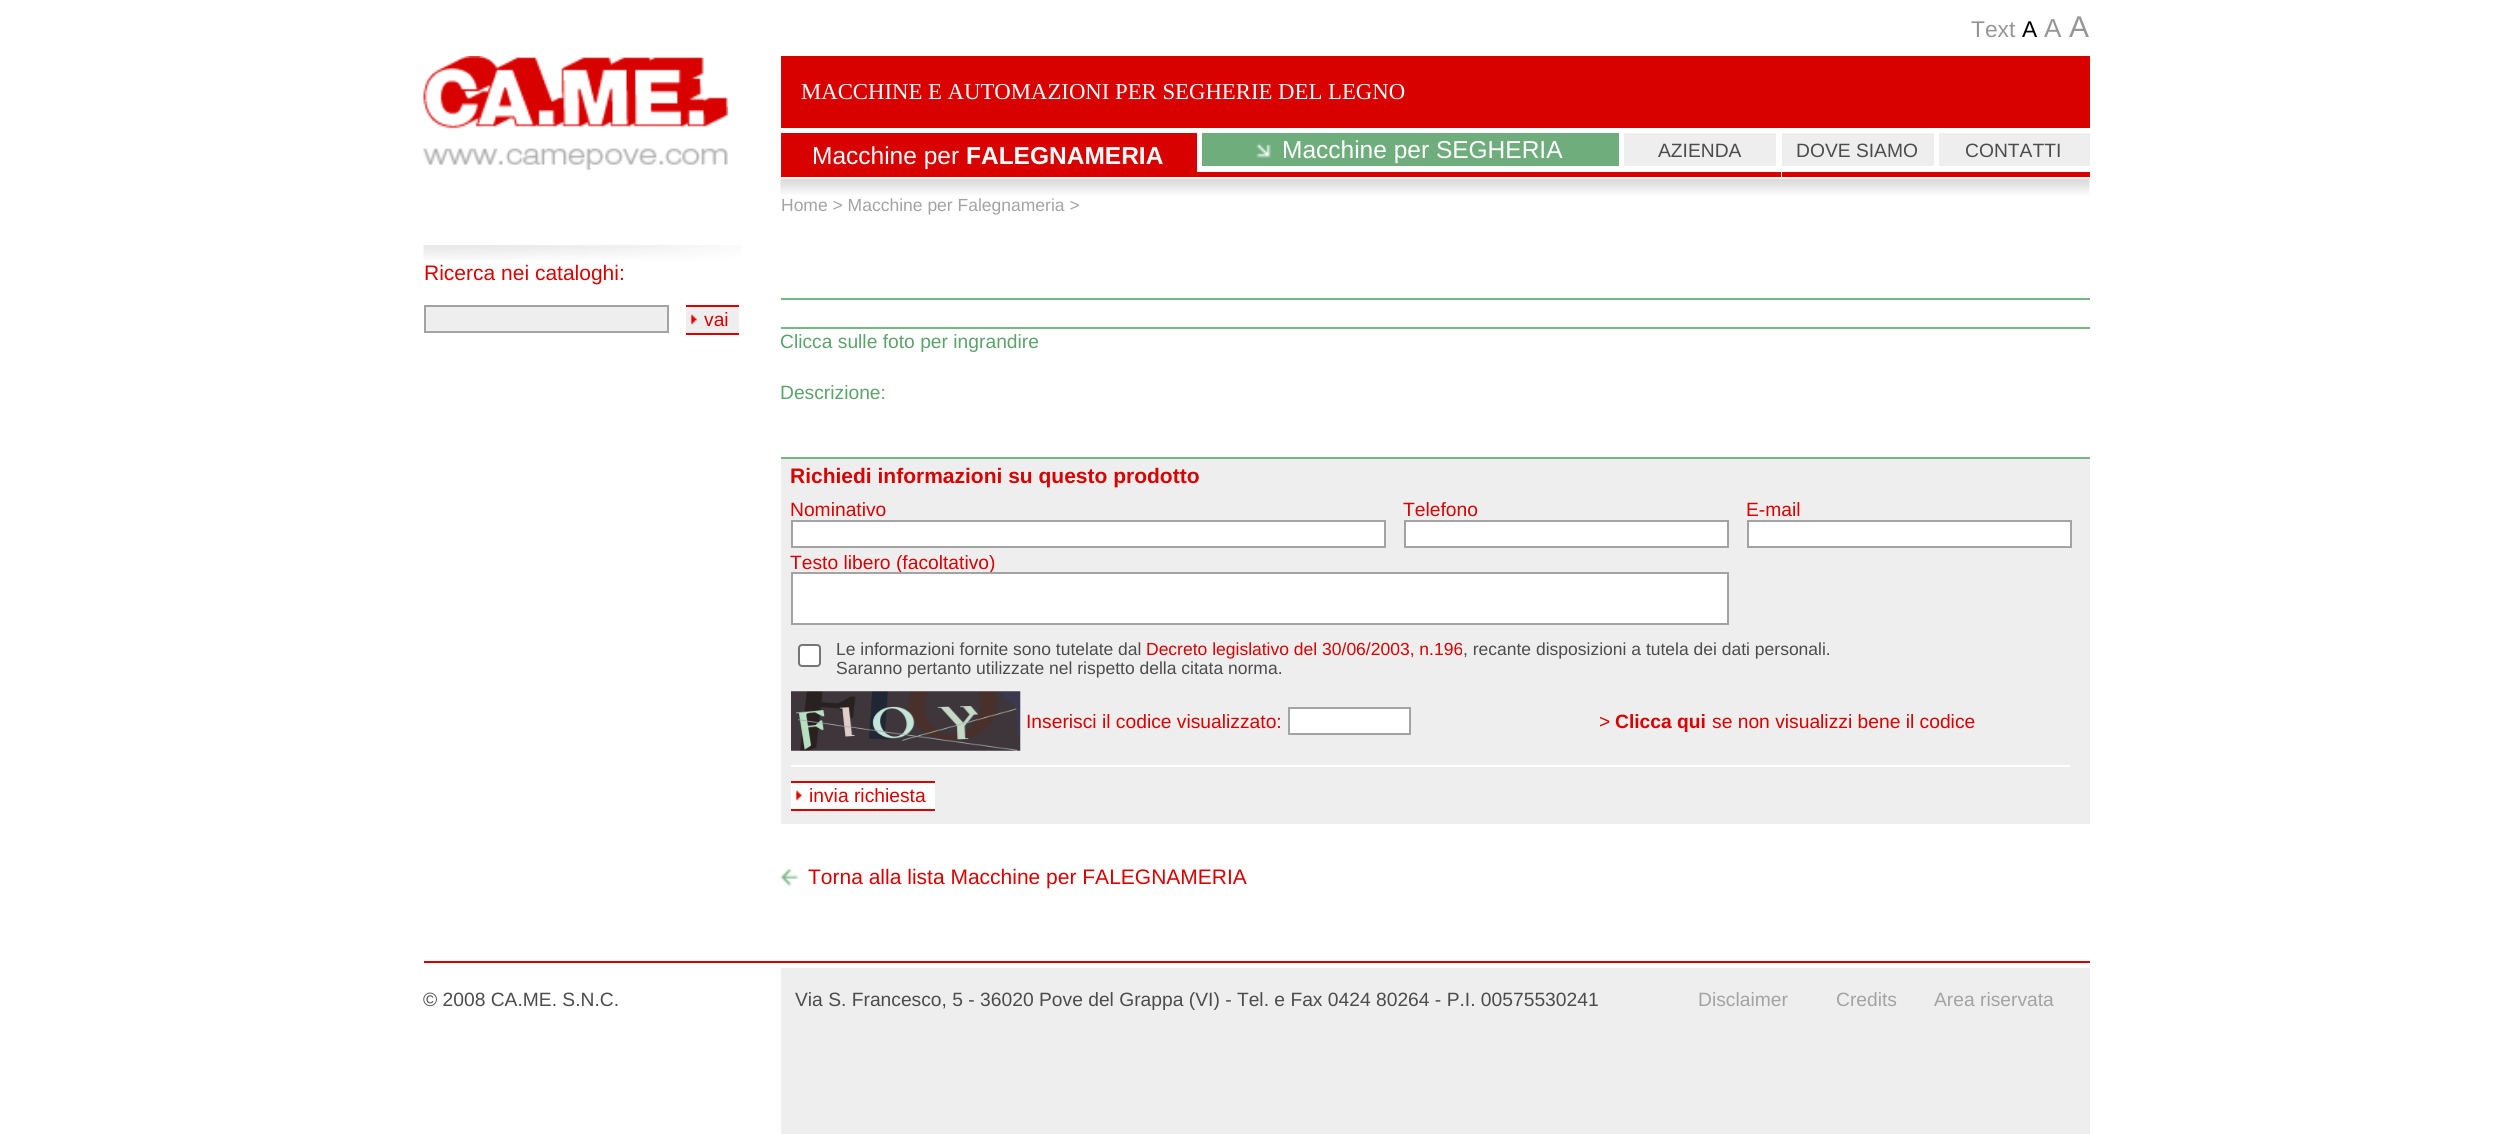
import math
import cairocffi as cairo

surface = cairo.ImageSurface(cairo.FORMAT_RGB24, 2511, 1134)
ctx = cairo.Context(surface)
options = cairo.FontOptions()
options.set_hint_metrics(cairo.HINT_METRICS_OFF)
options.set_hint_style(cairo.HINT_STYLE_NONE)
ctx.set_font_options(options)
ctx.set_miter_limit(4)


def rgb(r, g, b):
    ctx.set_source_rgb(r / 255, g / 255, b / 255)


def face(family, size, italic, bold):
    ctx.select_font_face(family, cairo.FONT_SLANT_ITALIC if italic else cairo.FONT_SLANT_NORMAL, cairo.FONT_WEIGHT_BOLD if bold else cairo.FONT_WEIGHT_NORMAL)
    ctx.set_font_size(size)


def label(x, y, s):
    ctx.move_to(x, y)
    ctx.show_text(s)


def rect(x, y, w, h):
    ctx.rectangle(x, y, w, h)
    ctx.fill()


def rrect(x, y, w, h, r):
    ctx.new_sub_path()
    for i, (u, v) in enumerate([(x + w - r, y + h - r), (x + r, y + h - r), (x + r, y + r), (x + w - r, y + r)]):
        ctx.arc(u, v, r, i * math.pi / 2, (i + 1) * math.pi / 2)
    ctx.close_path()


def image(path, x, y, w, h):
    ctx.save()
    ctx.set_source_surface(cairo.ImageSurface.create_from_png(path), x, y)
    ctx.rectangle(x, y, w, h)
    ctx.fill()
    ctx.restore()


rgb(255, 255, 255)
ctx.paint()
image('image0.png', 423, 56, 305, 114)
image('image1.png', 423, 245, 318, 15)
face('Liberation Sans', 21, 0, 0)
rgb(217, 0, 0)
label(424, 280, 'Ricerca nei cataloghi:')
rgb(238, 238, 238)
ctx.rectangle(425, 306, 243, 26)
ctx.fill_preserve()
rgb(163, 163, 163)
ctx.stroke()
rgb(238, 238, 238)
rect(686, 307, 53, 26)
rgb(217, 0, 0)
rect(686, 305, 53, 2)
image('image2.png', 690, 314, 7, 11)
face('Liberation Sans', 19.25, 0, 0)
label(704, 326, 'vai')
rect(686, 333, 53, 2)
face('Liberation Sans', 22.75, 0, 0)
rgb(150, 150, 150)
label(1971, 37, 'Text')
rgb(0, 0, 0)
label(2022, 37, 'A')
face('Liberation Sans', 26, 0, 0)
rgb(150, 150, 150)
label(2044, 37, 'A')
face('Liberation Sans', 30, 0, 0)
label(2069, 37, 'A')
rgb(217, 0, 0)
rect(781, 56, 1309, 72)
face('Liberation Serif', 22.75, 0, 0)
rgb(255, 255, 255)
label(801, 99, 'MACCHINE E AUTOMAZIONI PER SEGHERIE DEL LEGNO')
rgb(217, 0, 0)
rect(781, 133, 416, 44)
face('Liberation Sans', 24.5, 0, 0)
rgb(255, 255, 255)
label(812, 164, 'Macchine per')
face('Liberation Sans', 24.5, 0, 1)
label(966, 164, 'FALEGNAMERIA')
rgb(111, 174, 124)
rect(1202, 133, 417, 33)
image('image3.png', 1256, 143, 15, 15)
face('Liberation Sans', 24.5, 0, 0)
rgb(255, 255, 255)
label(1282, 158, 'Macchine per SEGHERIA')
rgb(238, 238, 238)
rect(1624, 133, 152, 33)
face('Liberation Sans', 19.25, 0, 0)
rgb(76, 76, 76)
label(1658, 157, 'AZIENDA')
rgb(238, 238, 238)
rect(1782, 133, 152, 33)
rgb(76, 76, 76)
label(1796, 157, 'DOVE SIAMO')
rgb(238, 238, 238)
rect(1939, 133, 151, 33)
rgb(76, 76, 76)
label(1965, 157, 'CONTATTI')
rgb(217, 0, 0)
rect(1197, 172, 584, 5)
rect(1782, 172, 308, 5)
image('image4.png', 780, 178, 1310, 17)
face('Liberation Sans', 17.5, 0, 0)
rgb(163, 163, 163)
label(781, 211, 'Home > Macchine per Falegnameria >')
rgb(119, 181, 132)
rect(781, 298, 1309, 2)
rect(781, 327, 1309, 2)
face('Liberation Sans', 19.25, 0, 0)
rgb(92, 163, 107)
label(780, 348, 'Clicca sulle foto per ingrandire')
label(780, 399, 'Descrizione:')
rgb(119, 181, 132)
rect(781, 457, 1309, 2)
rgb(238, 238, 238)
rect(781, 459, 1309, 365)
face('Liberation Sans', 21, 0, 1)
rgb(217, 0, 0)
label(790, 483, 'Richiedi informazioni su questo prodotto')
face('Liberation Sans', 19.25, 0, 0)
label(790, 516, 'Nominativo')
label(1403, 516, 'Telefono')
label(1746, 516, 'E-mail')
rgb(255, 255, 255)
ctx.rectangle(792, 521, 593, 26)
ctx.fill_preserve()
rgb(163, 163, 163)
ctx.stroke()
rgb(255, 255, 255)
ctx.rectangle(1405, 521, 323, 26)
ctx.fill_preserve()
rgb(163, 163, 163)
ctx.stroke()
rgb(255, 255, 255)
ctx.rectangle(1748, 521, 323, 26)
ctx.fill_preserve()
rgb(163, 163, 163)
ctx.stroke()
rgb(217, 0, 0)
label(790, 569, 'Testo libero (facoltativo)')
rgb(255, 255, 255)
ctx.rectangle(792, 573, 936, 51)
ctx.fill_preserve()
rgb(163, 163, 163)
ctx.stroke()
rgb(255, 255, 255)
rrect(799, 645, 21, 21, 3)
ctx.fill_preserve()
rgb(118, 118, 118)
ctx.stroke()
face('Liberation Sans', 17.5, 0, 0)
rgb(76, 76, 76)
label(836, 655, 'Le informazioni fornite sono tutelate dal')
rgb(217, 0, 0)
label(1146, 655, 'Decreto legislativo del 30/06/2003, n.196')
rgb(76, 76, 76)
label(1463, 655, ', recante disposizioni a tutela dei dati personali.')
label(836, 674, 'Saranno pertanto utilizzate nel rispetto della citata norma.')
image('image5.png', 791, 691, 230, 60)
face('Liberation Sans', 19.25, 0, 0)
rgb(217, 0, 0)
label(1026, 728, 'Inserisci il codice visualizzato:')
rgb(255, 255, 255)
ctx.rectangle(1289, 708, 121, 26)
ctx.fill_preserve()
rgb(163, 163, 163)
ctx.stroke()
rgb(217, 0, 0)
label(1599, 728, '>')
face('Liberation Sans', 19.25, 0, 1)
label(1615, 728, 'Clicca qui')
face('Liberation Sans', 19.25, 0, 0)
label(1712, 728, 'se non visualizzi bene il codice')
rgb(255, 255, 255)
rect(791, 765, 1279, 2)
rect(791, 783, 144, 26)
rgb(217, 0, 0)
rect(791, 781, 144, 2)
image('image6.png', 795, 790, 7, 11)
label(809, 802, 'invia richiesta')
rect(791, 809, 144, 2)
image('image7.png', 780, 868, 18, 18)
face('Liberation Sans', 21, 0, 0)
label(808, 884, 'Torna alla lista Macchine per FALEGNAMERIA')
rect(424, 961, 1666, 2)
face('Liberation Sans', 19.25, 0, 0)
rgb(76, 76, 76)
label(423, 1006, '© 2008 CA.ME. S.N.C.')
rgb(238, 238, 238)
rect(781, 968, 1309, 166)
rgb(76, 76, 76)
label(795, 1006, 'Via S. Francesco, 5 - 36020 Pove del Grappa (VI) - Tel. e Fax 0424 80264 - P.I. 00575530241')
rgb(163, 163, 163)
label(1698, 1006, 'Disclaimer')
label(1836, 1006, 'Credits')
label(1934, 1006, 'Area riservata')
surface.write_to_png('render.png')
